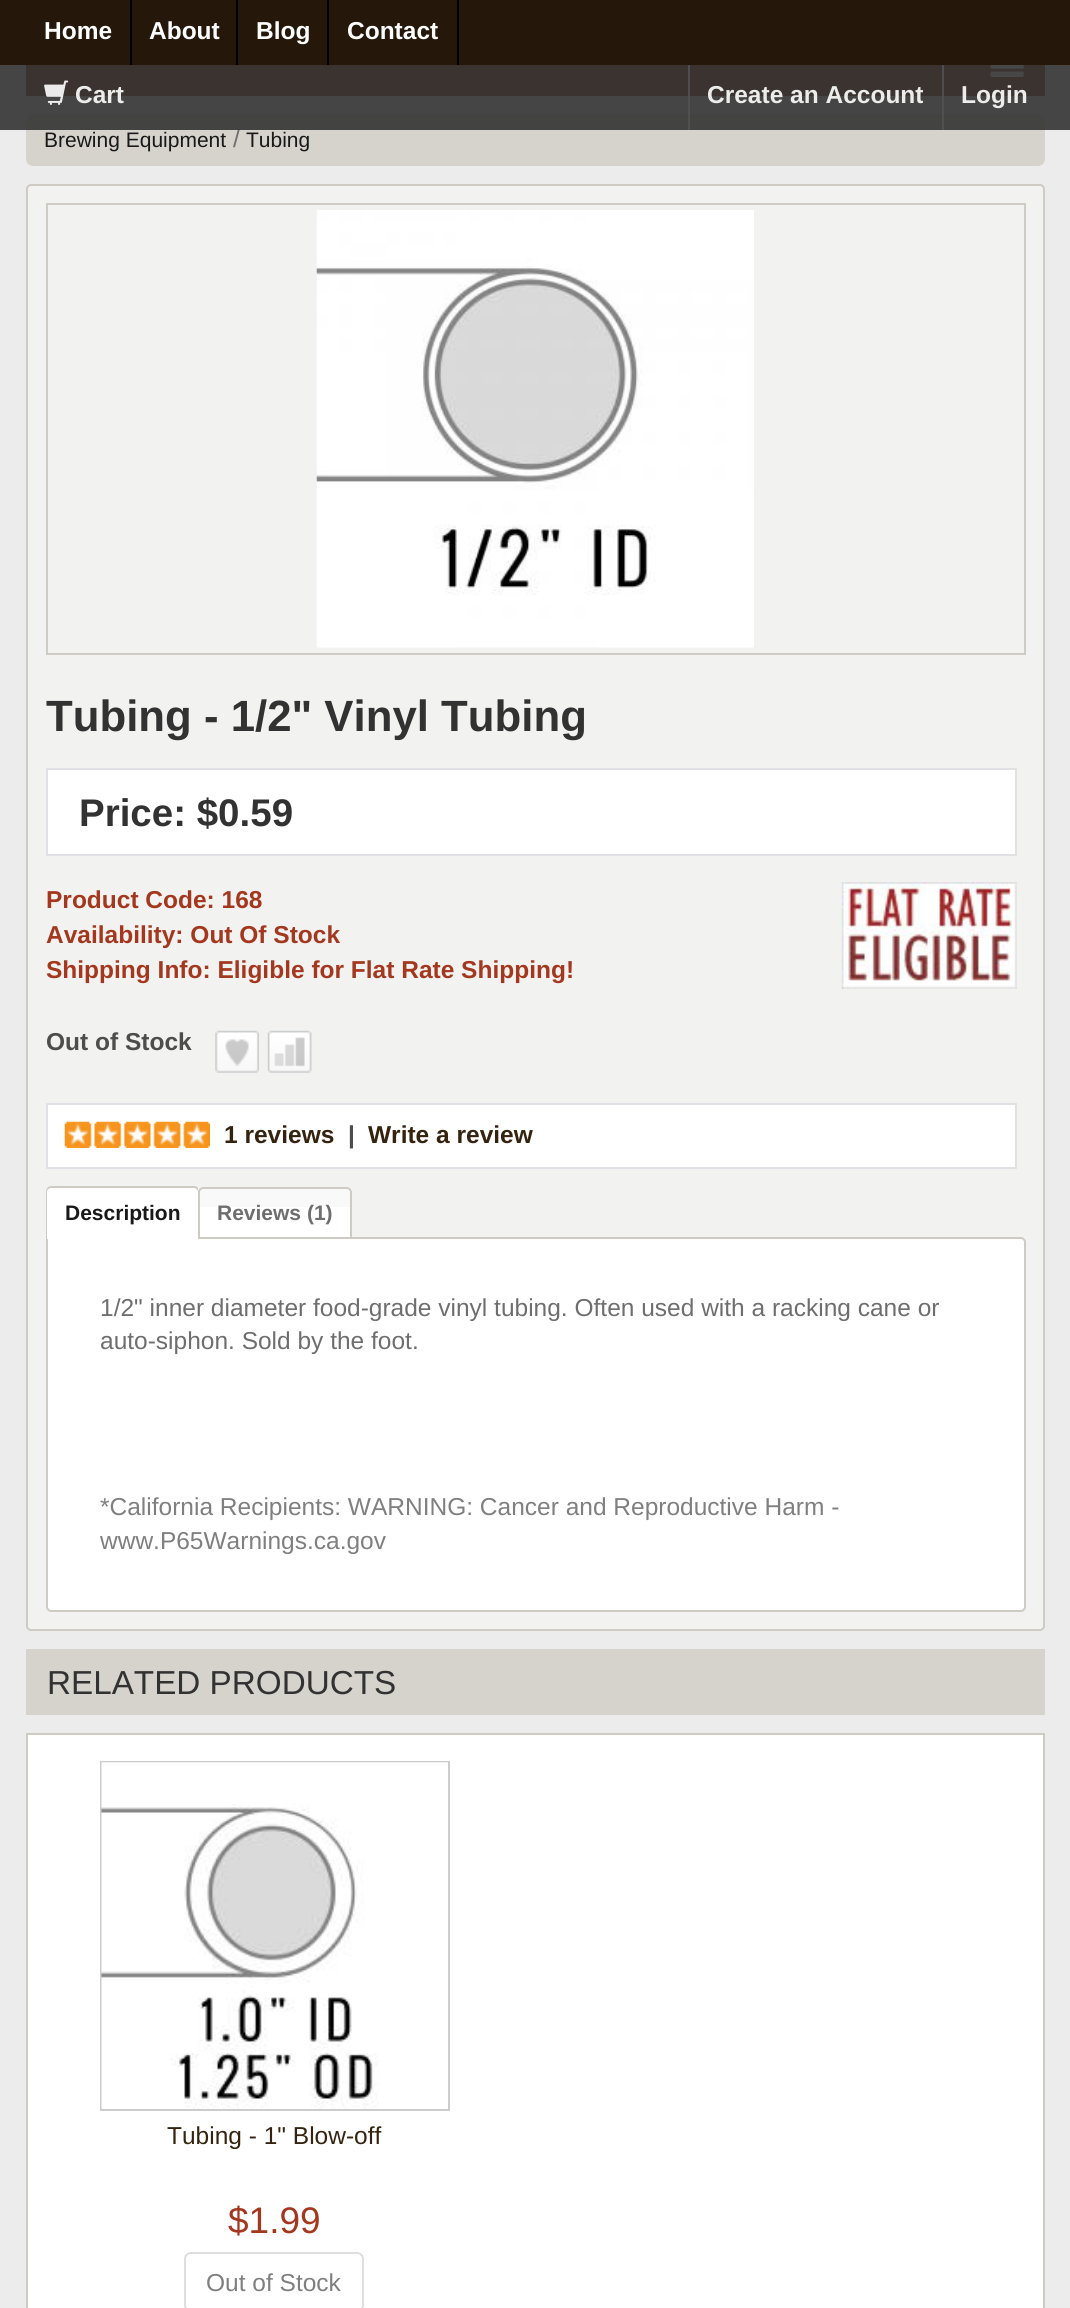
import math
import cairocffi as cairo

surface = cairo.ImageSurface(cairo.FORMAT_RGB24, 1070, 2308)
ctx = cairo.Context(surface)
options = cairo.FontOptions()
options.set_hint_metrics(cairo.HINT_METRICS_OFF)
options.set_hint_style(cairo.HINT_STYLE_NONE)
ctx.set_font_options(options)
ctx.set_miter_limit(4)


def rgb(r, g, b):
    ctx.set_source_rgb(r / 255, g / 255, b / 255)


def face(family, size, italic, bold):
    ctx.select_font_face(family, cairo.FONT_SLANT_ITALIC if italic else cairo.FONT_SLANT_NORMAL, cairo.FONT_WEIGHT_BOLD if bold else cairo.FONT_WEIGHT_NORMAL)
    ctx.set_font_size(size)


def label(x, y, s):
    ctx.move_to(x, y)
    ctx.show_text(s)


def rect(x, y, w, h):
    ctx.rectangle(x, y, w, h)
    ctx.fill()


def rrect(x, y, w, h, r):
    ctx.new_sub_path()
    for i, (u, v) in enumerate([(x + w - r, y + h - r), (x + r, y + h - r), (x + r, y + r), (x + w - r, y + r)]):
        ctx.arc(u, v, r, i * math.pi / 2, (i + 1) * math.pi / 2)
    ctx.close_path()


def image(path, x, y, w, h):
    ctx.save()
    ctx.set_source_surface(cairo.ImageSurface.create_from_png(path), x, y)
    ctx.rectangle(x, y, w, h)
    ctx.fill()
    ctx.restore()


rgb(237, 236, 236)
ctx.paint()
rgb(37, 24, 11)
rect(0, 0, 1070, 65)
rgb(0, 0, 0)
rect(130, 0, 2, 65)
face('Liberation Sans', 24.5, 0, 1)
rgb(255, 255, 255)
label(44, 39, 'Home')
rgb(0, 0, 0)
rect(236, 0, 2, 65)
rgb(255, 255, 255)
label(149, 39, 'About')
rgb(0, 0, 0)
rect(327, 0, 2, 65)
rgb(255, 255, 255)
label(256, 39, 'Blog')
rgb(0, 0, 0)
rect(457, 0, 2, 65)
rgb(255, 255, 255)
label(347, 39, 'Contact')
rgb(136, 46, 25)
rect(26, 65, 1019, 31)
image('image1.png', 990, 65, 34, 12)
rgb(214, 211, 204)
rrect(26, 114, 1019, 52, 7)
ctx.fill()
face('Liberation Sans', 24.5, 0, 0)
rgb(110, 110, 110)
label(233, 147, '/')
ctx.set_source_rgba(0.2, 0.2, 0.2, 0.9)
rect(0, 65, 1070, 65)
image('image0.png', 44, 80, 25, 25)
face('Liberation Sans', 24.5, 0, 1)
rgb(236, 236, 235)
label(75, 103, 'Cart')
ctx.set_source_rgba(0.318, 0.318, 0.318, 0.9)
rect(688, 65, 2, 65)
rgb(236, 236, 235)
label(707, 103, 'Create an Account')
ctx.set_source_rgba(0.318, 0.318, 0.318, 0.9)
rect(942, 65, 2, 65)
rgb(236, 236, 235)
label(961, 103, 'Login')
face('Liberation Sans', 21, 0, 0)
rgb(25, 25, 25)
label(44, 147, 'Brewing Equipment')
label(246, 147, 'Tubing')
image('image2.png', 27, 184, 1017, 1447)
rrect(27, 185, 1017, 1445, 4)
rgb(205, 203, 196)
ctx.stroke()
ctx.rectangle(47, 204, 978, 450)
ctx.stroke()
image('image3.png', 316, 210, 438, 438)
face('Liberation Sans', 43.75, 0, 1)
rgb(50, 50, 50)
label(46, 731, 'Tubing - 1/2" Vinyl Tubing')
rgb(255, 255, 255)
ctx.rectangle(47, 769, 969, 86)
ctx.fill_preserve()
rgb(223, 225, 228)
ctx.stroke()
face('Liberation Sans', 38.5, 0, 1)
rgb(50, 50, 50)
label(79, 826, 'Price: $0.59')
face('Liberation Sans', 24.5, 0, 1)
rgb(164, 56, 31)
label(46, 908, 'Product Code: 168')
image('image4.png', 841, 882, 176, 107)
label(46, 943, 'Availability: Out Of Stock')
label(46, 978, 'Shipping Info: Eligible for Flat Rate Shipping!')
rgb(77, 77, 77)
label(46, 1050, 'Out of Stock')
image('image5.png', 215, 1030, 44, 43)
image('image6.png', 267, 1030, 45, 43)
rgb(255, 255, 255)
ctx.rectangle(47, 1104, 969, 64)
ctx.fill_preserve()
rgb(223, 225, 228)
ctx.stroke()
image('image7.png', 64, 1121, 146, 27)
rgb(53, 35, 15)
label(224, 1143, '1 reviews')
rgb(77, 77, 77)
label(348, 1143, '|')
rgb(53, 35, 15)
label(368, 1143, 'Write a review')
rgb(255, 255, 255)
ctx.new_path()
ctx.move_to(47, 1238)
ctx.line_to(1021, 1238)
ctx.curve_to(1023, 1238, 1025, 1240, 1025, 1242)
ctx.line_to(1025, 1607)
ctx.curve_to(1025, 1609, 1023, 1611, 1021, 1611)
ctx.line_to(51, 1611)
ctx.curve_to(49, 1611, 47, 1609, 47, 1607)
ctx.close_path()
ctx.fill_preserve()
rgb(205, 203, 196)
ctx.stroke()
rgb(255, 255, 255)
ctx.new_path()
ctx.move_to(51, 1187)
ctx.line_to(195, 1187)
ctx.curve_to(198, 1187, 200, 1189, 200, 1192)
ctx.line_to(200, 1239)
ctx.line_to(46, 1239)
ctx.line_to(46, 1192)
ctx.curve_to(46, 1189, 48, 1187, 51, 1187)
ctx.close_path()
ctx.fill()
rgb(205, 203, 196)
ctx.set_fill_rule(cairo.FILL_RULE_EVEN_ODD)
ctx.new_path()
ctx.move_to(51, 1186)
ctx.line_to(194, 1186)
ctx.curve_to(197, 1186, 200, 1189, 200, 1192)
ctx.line_to(200, 1239)
ctx.line_to(46, 1239)
ctx.line_to(46, 1192)
ctx.curve_to(46, 1189, 48, 1186, 51, 1186)
ctx.close_path()
ctx.move_to(51, 1188)
ctx.line_to(194, 1188)
ctx.curve_to(196, 1188, 198, 1190, 198, 1192)
ctx.line_to(198, 1239)
ctx.line_to(47, 1239)
ctx.line_to(47, 1192)
ctx.curve_to(47, 1190, 49, 1188, 51, 1188)
ctx.close_path()
ctx.fill()
face('Liberation Sans', 21, 0, 1)
rgb(25, 25, 25)
label(65, 1220, 'Description')
rgb(255, 255, 255)
ctx.new_path()
ctx.move_to(203, 1187)
ctx.line_to(347, 1187)
ctx.curve_to(350, 1187, 352, 1189, 352, 1192)
ctx.line_to(352, 1239)
ctx.line_to(198, 1239)
ctx.line_to(198, 1192)
ctx.curve_to(198, 1189, 200, 1187, 203, 1187)
ctx.close_path()
ctx.fill()
rgb(249, 249, 249)
rect(198, 1188, 153, 19)
ctx.new_path()
ctx.move_to(203, 1188)
ctx.line_to(347, 1188)
ctx.curve_to(349, 1188, 351, 1190, 351, 1192)
ctx.line_to(351, 1238)
ctx.line_to(199, 1238)
ctx.line_to(199, 1192)
ctx.curve_to(199, 1190, 201, 1188, 203, 1188)
ctx.close_path()
rgb(205, 203, 196)
ctx.stroke()
rgb(110, 110, 110)
label(217, 1220, 'Reviews (1)')
face('Liberation Sans', 24.5, 0, 0)
label(100, 1316, '1/2" inner diameter food-grade vinyl tubing. Often used with a racking cane or')
label(100, 1349, 'auto-siphon. Sold by the foot.')
rgb(127, 127, 127)
label(100, 1515, '*California Recipients: WARNING: Cancer and Reproductive Harm -')
label(100, 1549, 'www.P65Warnings.ca.gov')
rgb(214, 211, 204)
rect(26, 1649, 1019, 66)
face('Liberation Sans', 33.25, 0, 0)
rgb(50, 50, 50)
label(47, 1694, 'RELATED PRODUCTS')
rgb(255, 255, 255)
ctx.rectangle(27, 1734, 1017, 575)
ctx.fill_preserve()
rgb(205, 203, 196)
ctx.stroke()
ctx.rectangle(101, 1762, 348, 348)
rgb(204, 204, 204)
ctx.stroke()
image('image8.png', 101, 1762, 347, 347)
face('Liberation Sans', 24.5, 0, 0)
rgb(53, 35, 15)
label(167, 2144, 'Tubing - 1" Blow-off')
face('Liberation Sans', 37, 0, 0)
rgb(164, 56, 31)
label(228, 2233, '$1.99')
rrect(185, 2253, 178, 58, 6)
rgb(222, 222, 222)
ctx.stroke()
face('Liberation Sans', 24.5, 0, 0)
rgb(127, 127, 127)
label(206, 2291, 'Out of Stock')
surface.write_to_png('render.png')
